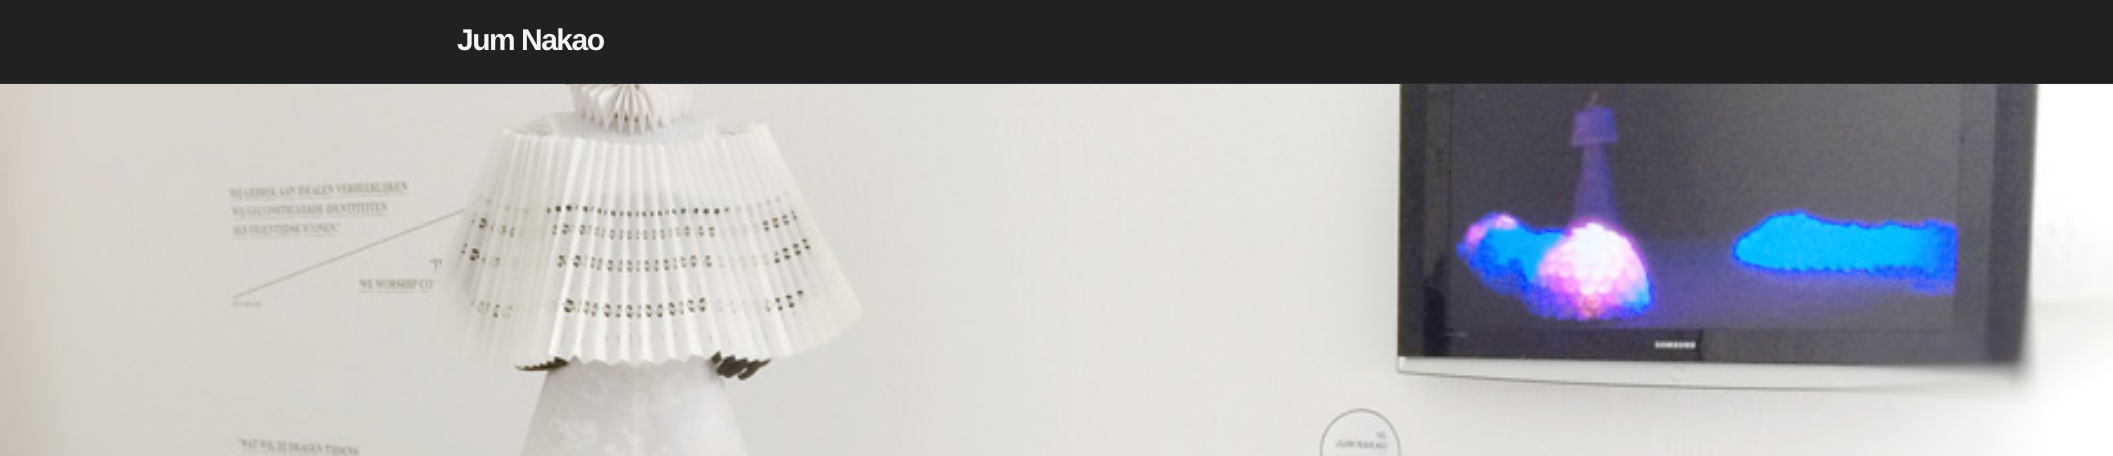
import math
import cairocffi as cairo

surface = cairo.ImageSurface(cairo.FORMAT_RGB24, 2113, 456)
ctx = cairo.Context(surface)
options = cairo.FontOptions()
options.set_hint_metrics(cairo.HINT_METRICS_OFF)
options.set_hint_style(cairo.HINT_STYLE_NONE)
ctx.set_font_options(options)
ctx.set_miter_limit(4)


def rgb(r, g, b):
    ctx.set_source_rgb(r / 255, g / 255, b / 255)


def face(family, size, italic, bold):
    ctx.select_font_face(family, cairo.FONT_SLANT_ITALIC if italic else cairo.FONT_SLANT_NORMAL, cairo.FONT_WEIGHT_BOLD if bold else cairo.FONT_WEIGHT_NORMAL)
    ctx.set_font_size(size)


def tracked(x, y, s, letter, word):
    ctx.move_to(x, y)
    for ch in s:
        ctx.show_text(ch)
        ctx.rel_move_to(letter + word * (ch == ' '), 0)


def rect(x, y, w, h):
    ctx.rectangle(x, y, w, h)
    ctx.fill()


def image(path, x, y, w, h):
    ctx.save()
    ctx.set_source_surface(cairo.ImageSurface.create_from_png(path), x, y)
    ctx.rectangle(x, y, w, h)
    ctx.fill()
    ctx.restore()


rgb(255, 255, 255)
ctx.paint()
rgb(32, 33, 34)
rect(0, 0, 2113, 83)
rgb(46, 46, 46)
rect(0, 83, 2113, 1)
face('Liberation Sans', 30, 0, 1)
rgb(245, 245, 245)
tracked(457, 50, 'Jum Nakao', -1.5, 0)
image('image0.png', 0, 84, 2113, 372)
surface.write_to_png('render.png')
